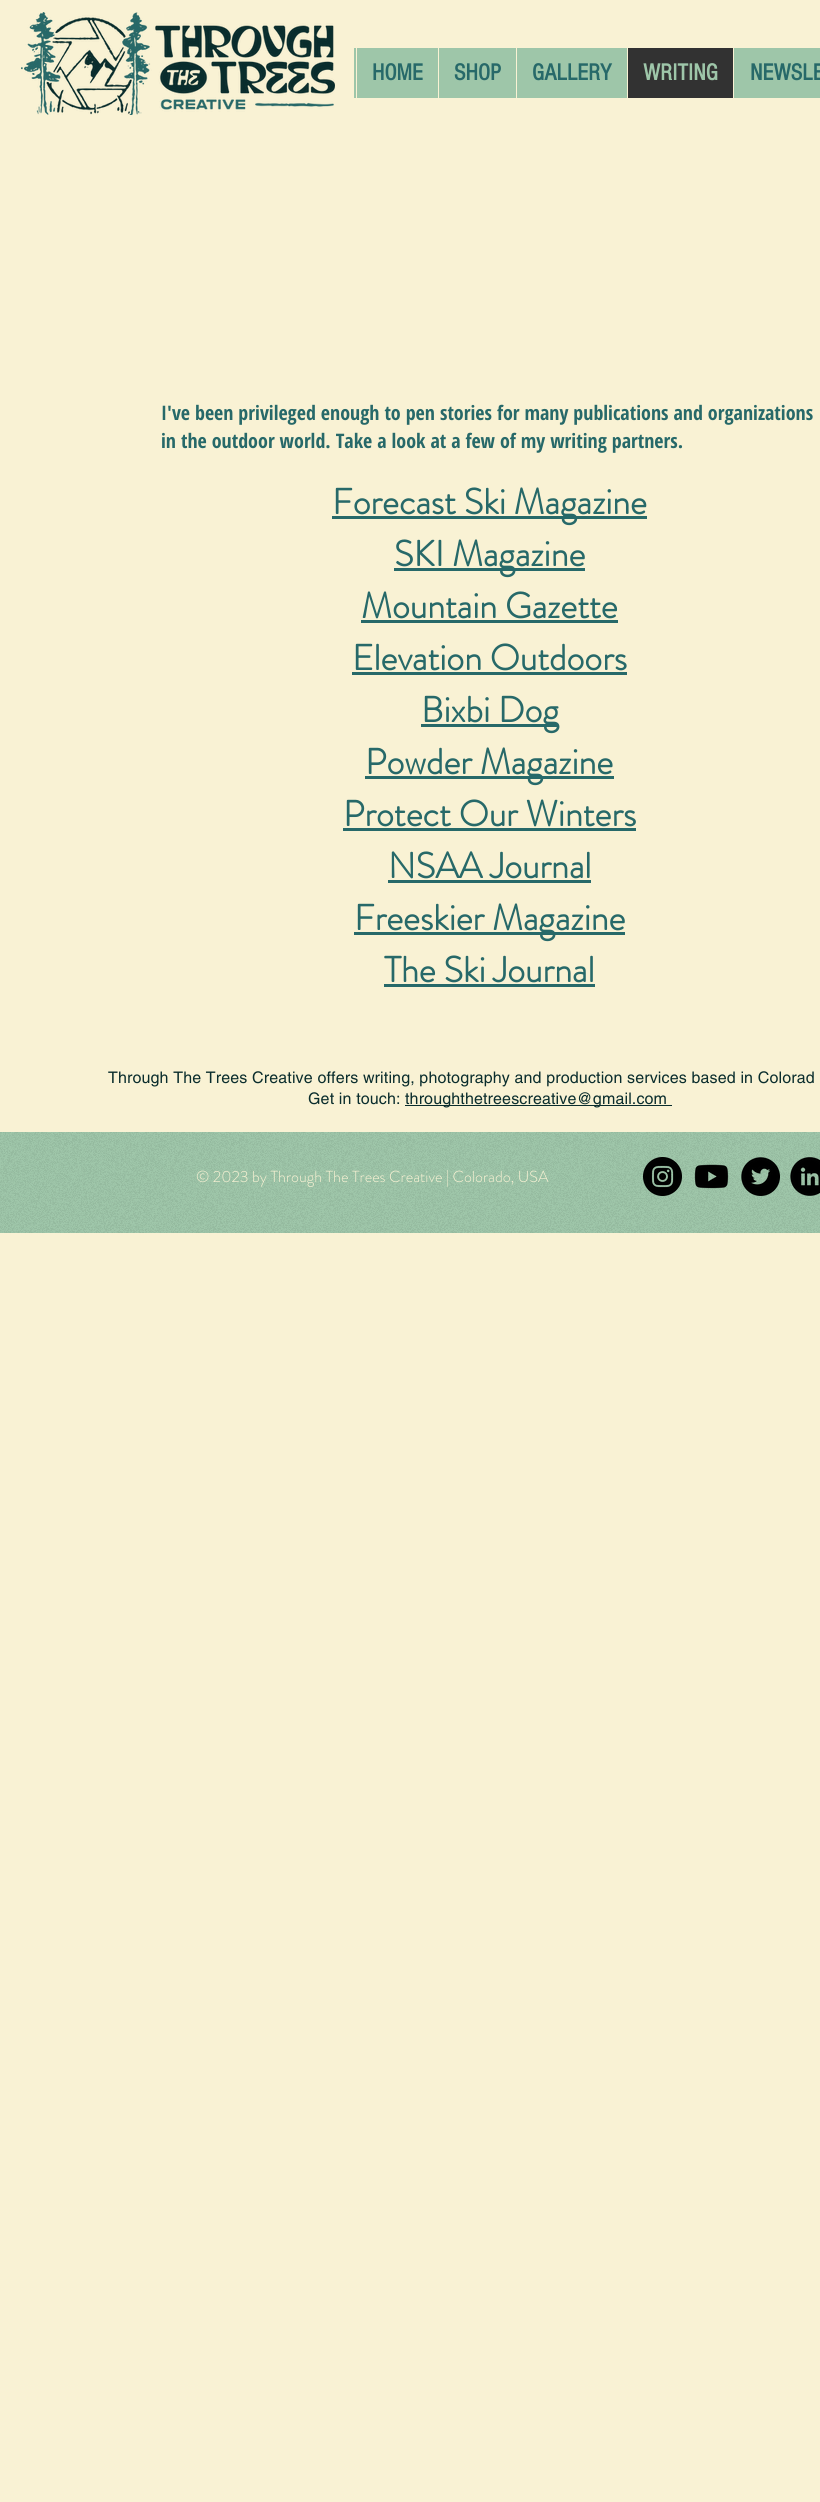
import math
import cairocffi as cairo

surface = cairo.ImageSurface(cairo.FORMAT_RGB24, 820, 2502)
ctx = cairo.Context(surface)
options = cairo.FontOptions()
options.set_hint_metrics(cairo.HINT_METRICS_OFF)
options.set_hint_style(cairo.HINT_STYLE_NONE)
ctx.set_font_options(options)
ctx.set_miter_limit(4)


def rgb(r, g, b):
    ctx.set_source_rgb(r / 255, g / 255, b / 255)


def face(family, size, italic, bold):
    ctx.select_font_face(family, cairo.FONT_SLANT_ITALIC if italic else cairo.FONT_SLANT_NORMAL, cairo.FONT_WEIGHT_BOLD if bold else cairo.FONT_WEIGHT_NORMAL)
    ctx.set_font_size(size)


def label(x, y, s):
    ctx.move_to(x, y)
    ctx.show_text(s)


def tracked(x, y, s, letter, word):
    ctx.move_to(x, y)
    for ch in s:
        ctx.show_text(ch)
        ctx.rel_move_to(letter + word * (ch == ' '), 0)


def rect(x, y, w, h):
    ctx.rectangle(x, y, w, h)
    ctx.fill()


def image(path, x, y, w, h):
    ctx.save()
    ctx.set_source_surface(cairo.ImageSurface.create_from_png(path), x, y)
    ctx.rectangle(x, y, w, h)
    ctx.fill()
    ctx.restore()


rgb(249, 242, 212)
ctx.paint()
image('image0.png', 21, 12, 314, 103)
rgb(158, 198, 169)
rect(354, 48, 466, 50)
rgb(249, 242, 212)
rect(356, 48, 1, 50)
face('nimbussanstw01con', 24, 0, 1)
rgb(39, 105, 105)
label(372, 80, 'HOME')
rgb(249, 242, 212)
rect(438, 48, 1, 50)
rgb(39, 105, 105)
label(454, 80, 'SHOP')
rgb(249, 242, 212)
rect(516, 48, 1, 50)
rgb(39, 105, 105)
label(532, 80, 'GALLERY')
rgb(50, 50, 50)
rect(628, 48, 105, 50)
rgb(249, 242, 212)
rect(627, 48, 1, 50)
rgb(158, 198, 169)
label(643, 80, 'WRITING')
rgb(249, 242, 212)
rect(733, 48, 1, 50)
rgb(39, 105, 105)
label(750, 80, 'NEWSLE')
face('Open Sans Condensed', 20, 0, 1)
label(161, 420, 'I\'ve been privileged enough to pen stories for many publications and organizations')
label(161, 448, 'in the outdoor world. Take a look at a few of my writing partners.')
rect(332, 516, 315, 3)
face('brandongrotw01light', 36, 0, 1)
label(332, 514, 'Forecast Ski Magazine')
rect(394, 568, 191, 3)
label(394, 566, 'SKI Magazine')
label(361, 618, 'Mountain Gazette')
rect(361, 620, 257, 3)
label(352, 670, 'Elevation Outdoors')
rect(352, 672, 275, 3)
rect(421, 724, 137, 3)
label(421, 722, 'Bixbi Dog')
rect(365, 776, 249, 3)
label(365, 774, 'Powder Magazine')
label(343, 826, 'Protect Our Winters')
rect(343, 828, 293, 3)
label(388, 878, 'NSAA Journal')
rect(388, 880, 203, 3)
rect(354, 932, 271, 3)
label(354, 930, 'Freeskier Magazine')
label(384, 982, 'The Ski Journal')
rect(384, 984, 211, 3)
face('helvetica', 16, 0, 0)
rgb(10, 45, 45)
tracked(108, 1083, 'Through The Trees Creative offers writing, photography and production services based in Colorad', 0.15, 0)
tracked(308, 1104, 'Get in touch:', 0.15, 0)
rect(405, 1105, 267, 1)
tracked(405, 1104, 'throughthetreescreative@gmail.com', 0.15, 0)
rgb(158, 198, 169)
rect(0, 1132, 820, 101)
image('image1.png', 0, 1132, 820, 101)
face('brandongrotw01light Light', 16, 0, 0)
rgb(249, 242, 212)
label(196, 1182, '© 2023 by Through The Trees Creative | Colorado, USA')
image('image2.png', 643, 1157, 39, 39)
image('image3.png', 694, 1164, 35, 25)
image('image4.png', 741, 1157, 39, 39)
image('image5.png', 790, 1157, 30, 39)
surface.write_to_png('render.png')
